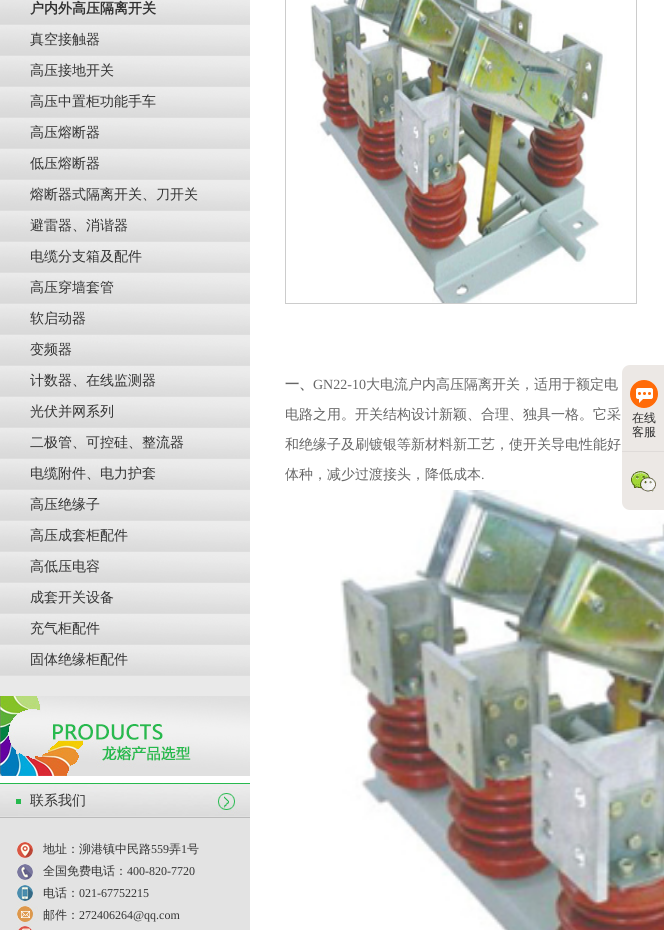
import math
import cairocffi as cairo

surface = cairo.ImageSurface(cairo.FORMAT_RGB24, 664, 930)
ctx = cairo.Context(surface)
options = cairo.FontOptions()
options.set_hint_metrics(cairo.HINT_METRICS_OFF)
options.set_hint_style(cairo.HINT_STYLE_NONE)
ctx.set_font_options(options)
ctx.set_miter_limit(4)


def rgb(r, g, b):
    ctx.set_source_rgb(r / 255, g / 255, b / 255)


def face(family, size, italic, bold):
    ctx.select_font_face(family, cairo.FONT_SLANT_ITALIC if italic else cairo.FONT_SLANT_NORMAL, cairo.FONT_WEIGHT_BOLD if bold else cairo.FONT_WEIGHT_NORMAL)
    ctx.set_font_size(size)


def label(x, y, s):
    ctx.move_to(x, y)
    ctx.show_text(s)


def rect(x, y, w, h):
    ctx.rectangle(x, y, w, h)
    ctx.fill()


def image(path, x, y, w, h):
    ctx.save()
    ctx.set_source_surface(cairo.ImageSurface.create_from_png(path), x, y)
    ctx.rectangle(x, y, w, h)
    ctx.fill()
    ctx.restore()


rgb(255, 255, 255)
ctx.paint()
image('image0.png', 0, 0, 250, 24)
rgb(222, 222, 222)
rect(0, 24, 250, 1)
face('WenQuanYi Zen Hei', 14, 0, 1)
rgb(51, 51, 51)
label(30, 13, '户内外高压隔离开关')
image('image1.png', 0, 25, 250, 30)
rgb(222, 222, 222)
rect(0, 55, 250, 1)
face('WenQuanYi Zen Hei Medium', 14, 0, 0)
rgb(51, 51, 51)
label(30, 44, '真空接触器')
image('image1.png', 0, 56, 250, 30)
rgb(222, 222, 222)
rect(0, 86, 250, 1)
rgb(51, 51, 51)
label(30, 75, '高压接地开关')
image('image1.png', 0, 87, 250, 30)
rgb(222, 222, 222)
rect(0, 117, 250, 1)
rgb(51, 51, 51)
label(30, 106, '高压中置柜功能手车')
image('image1.png', 0, 118, 250, 30)
rgb(222, 222, 222)
rect(0, 148, 250, 1)
rgb(51, 51, 51)
label(30, 137, '高压熔断器')
image('image1.png', 0, 149, 250, 30)
rgb(222, 222, 222)
rect(0, 179, 250, 1)
rgb(51, 51, 51)
label(30, 168, '低压熔断器')
image('image1.png', 0, 180, 250, 30)
rgb(222, 222, 222)
rect(0, 210, 250, 1)
rgb(51, 51, 51)
label(30, 199, '熔断器式隔离开关、刀开关')
image('image1.png', 0, 211, 250, 30)
rgb(222, 222, 222)
rect(0, 241, 250, 1)
rgb(51, 51, 51)
label(30, 230, '避雷器、消谐器')
image('image1.png', 0, 242, 250, 30)
rgb(222, 222, 222)
rect(0, 272, 250, 1)
rgb(51, 51, 51)
label(30, 261, '电缆分支箱及配件')
image('image1.png', 0, 273, 250, 30)
rgb(222, 222, 222)
rect(0, 303, 250, 1)
rgb(51, 51, 51)
label(30, 292, '高压穿墙套管')
image('image1.png', 0, 304, 250, 30)
rgb(222, 222, 222)
rect(0, 334, 250, 1)
rgb(51, 51, 51)
label(30, 323, '软启动器')
image('image1.png', 0, 335, 250, 30)
rgb(222, 222, 222)
rect(0, 365, 250, 1)
rgb(51, 51, 51)
label(30, 354, '变频器')
image('image1.png', 0, 366, 250, 30)
rgb(222, 222, 222)
rect(0, 396, 250, 1)
rgb(51, 51, 51)
label(30, 385, '计数器、在线监测器')
image('image1.png', 0, 397, 250, 30)
rgb(222, 222, 222)
rect(0, 427, 250, 1)
rgb(51, 51, 51)
label(30, 416, '光伏并网系列')
image('image1.png', 0, 428, 250, 30)
rgb(222, 222, 222)
rect(0, 458, 250, 1)
rgb(51, 51, 51)
label(30, 447, '二极管、可控硅、整流器')
image('image1.png', 0, 459, 250, 30)
rgb(222, 222, 222)
rect(0, 489, 250, 1)
rgb(51, 51, 51)
label(30, 478, '电缆附件、电力护套')
image('image1.png', 0, 490, 250, 30)
rgb(222, 222, 222)
rect(0, 520, 250, 1)
rgb(51, 51, 51)
label(30, 509, '高压绝缘子')
image('image1.png', 0, 521, 250, 30)
rgb(222, 222, 222)
rect(0, 551, 250, 1)
rgb(51, 51, 51)
label(30, 540, '高压成套柜配件')
image('image1.png', 0, 552, 250, 30)
rgb(222, 222, 222)
rect(0, 582, 250, 1)
rgb(51, 51, 51)
label(30, 571, '高低压电容')
image('image1.png', 0, 583, 250, 30)
rgb(222, 222, 222)
rect(0, 613, 250, 1)
rgb(51, 51, 51)
label(30, 602, '成套开关设备')
image('image1.png', 0, 614, 250, 30)
rgb(222, 222, 222)
rect(0, 644, 250, 1)
rgb(51, 51, 51)
label(30, 633, '充气柜配件')
image('image1.png', 0, 645, 250, 30)
rgb(222, 222, 222)
rect(0, 675, 250, 1)
rgb(51, 51, 51)
label(30, 664, '固体绝缘柜配件')
rgb(233, 233, 233)
rect(0, 676, 250, 20)
image('image2.png', 0, 696, 250, 80)
image('image3.png', 0, 783, 250, 35)
rgb(51, 51, 51)
label(30, 805, '联系我们')
image('image4.png', 0, 818, 250, 112)
face('WenQuanYi Zen Hei Medium', 12, 0, 0)
label(43, 853, '地址：泖港镇中民路')
face('Liberation Serif', 12, 0, 0)
label(151, 853, '559')
face('WenQuanYi Zen Hei Medium', 12, 0, 0)
label(169, 853, '弄')
face('Liberation Serif', 12, 0, 0)
label(181, 853, '1')
face('WenQuanYi Zen Hei Medium', 12, 0, 0)
label(187, 853, '号')
label(43, 875, '全国免费电话：')
face('Liberation Serif', 12, 0, 0)
label(127, 875, '400-820-7720')
face('WenQuanYi Zen Hei Medium', 12, 0, 0)
label(43, 897, '电话：')
face('Liberation Serif', 12, 0, 0)
label(79, 897, '021-67752215')
face('WenQuanYi Zen Hei Medium', 12, 0, 0)
label(43, 919, '邮件：')
face('Liberation Serif', 12, 0, 0)
label(79, 919, '272406264@qq.com')
ctx.rectangle(285.5, -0.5, 351, 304)
rgb(204, 204, 204)
ctx.set_line_width(1)
ctx.stroke()
image('image5.png', 310, 0, 297, 303)
face('WenQuanYi Zen Hei', 14, 0, 1)
rgb(102, 102, 102)
label(285, 389, '一、')
face('Liberation Serif', 14, 0, 0)
label(313, 389, 'GN22-10')
face('WenQuanYi Zen Hei Medium', 14, 0, 0)
label(366, 389, '大电流户内高压隔离开关，适用于额定电')
label(285, 419, '电路之用。开关结构设计新颖、合理、独具一格。它采')
label(285, 449, '和绝缘子及刷镀银等新材料新工艺，使开关导电性能好')
label(285, 479, '体种，减少过渡接头，降低成本')
face('Liberation Serif', 14, 0, 0)
label(481, 479, '.')
image('image6.png', 340, 490, 324, 440)
rgb(236, 232, 229)
ctx.new_path()
ctx.move_to(630, 365)
ctx.line_to(664, 365)
ctx.line_to(664, 452)
ctx.line_to(622, 452)
ctx.line_to(622, 373)
ctx.curve_to(622, 368.5, 625.5, 365, 630, 365)
ctx.close_path()
ctx.fill()
rgb(223, 219, 217)
rect(622, 451, 42, 1)
image('image7.png', 630, 380, 28, 28)
face('WenQuanYi Zen Hei Medium', 12, 0, 0)
rgb(44, 44, 44)
label(632, 422, '在线')
label(632, 436, '客服')
rgb(236, 232, 229)
ctx.new_path()
ctx.move_to(622, 452)
ctx.line_to(664, 452)
ctx.line_to(664, 510)
ctx.line_to(630, 510)
ctx.curve_to(625.5, 510, 622, 506.5, 622, 502)
ctx.close_path()
ctx.fill()
image('image8.png', 631, 471, 25, 21)
surface.write_to_png('render.png')
